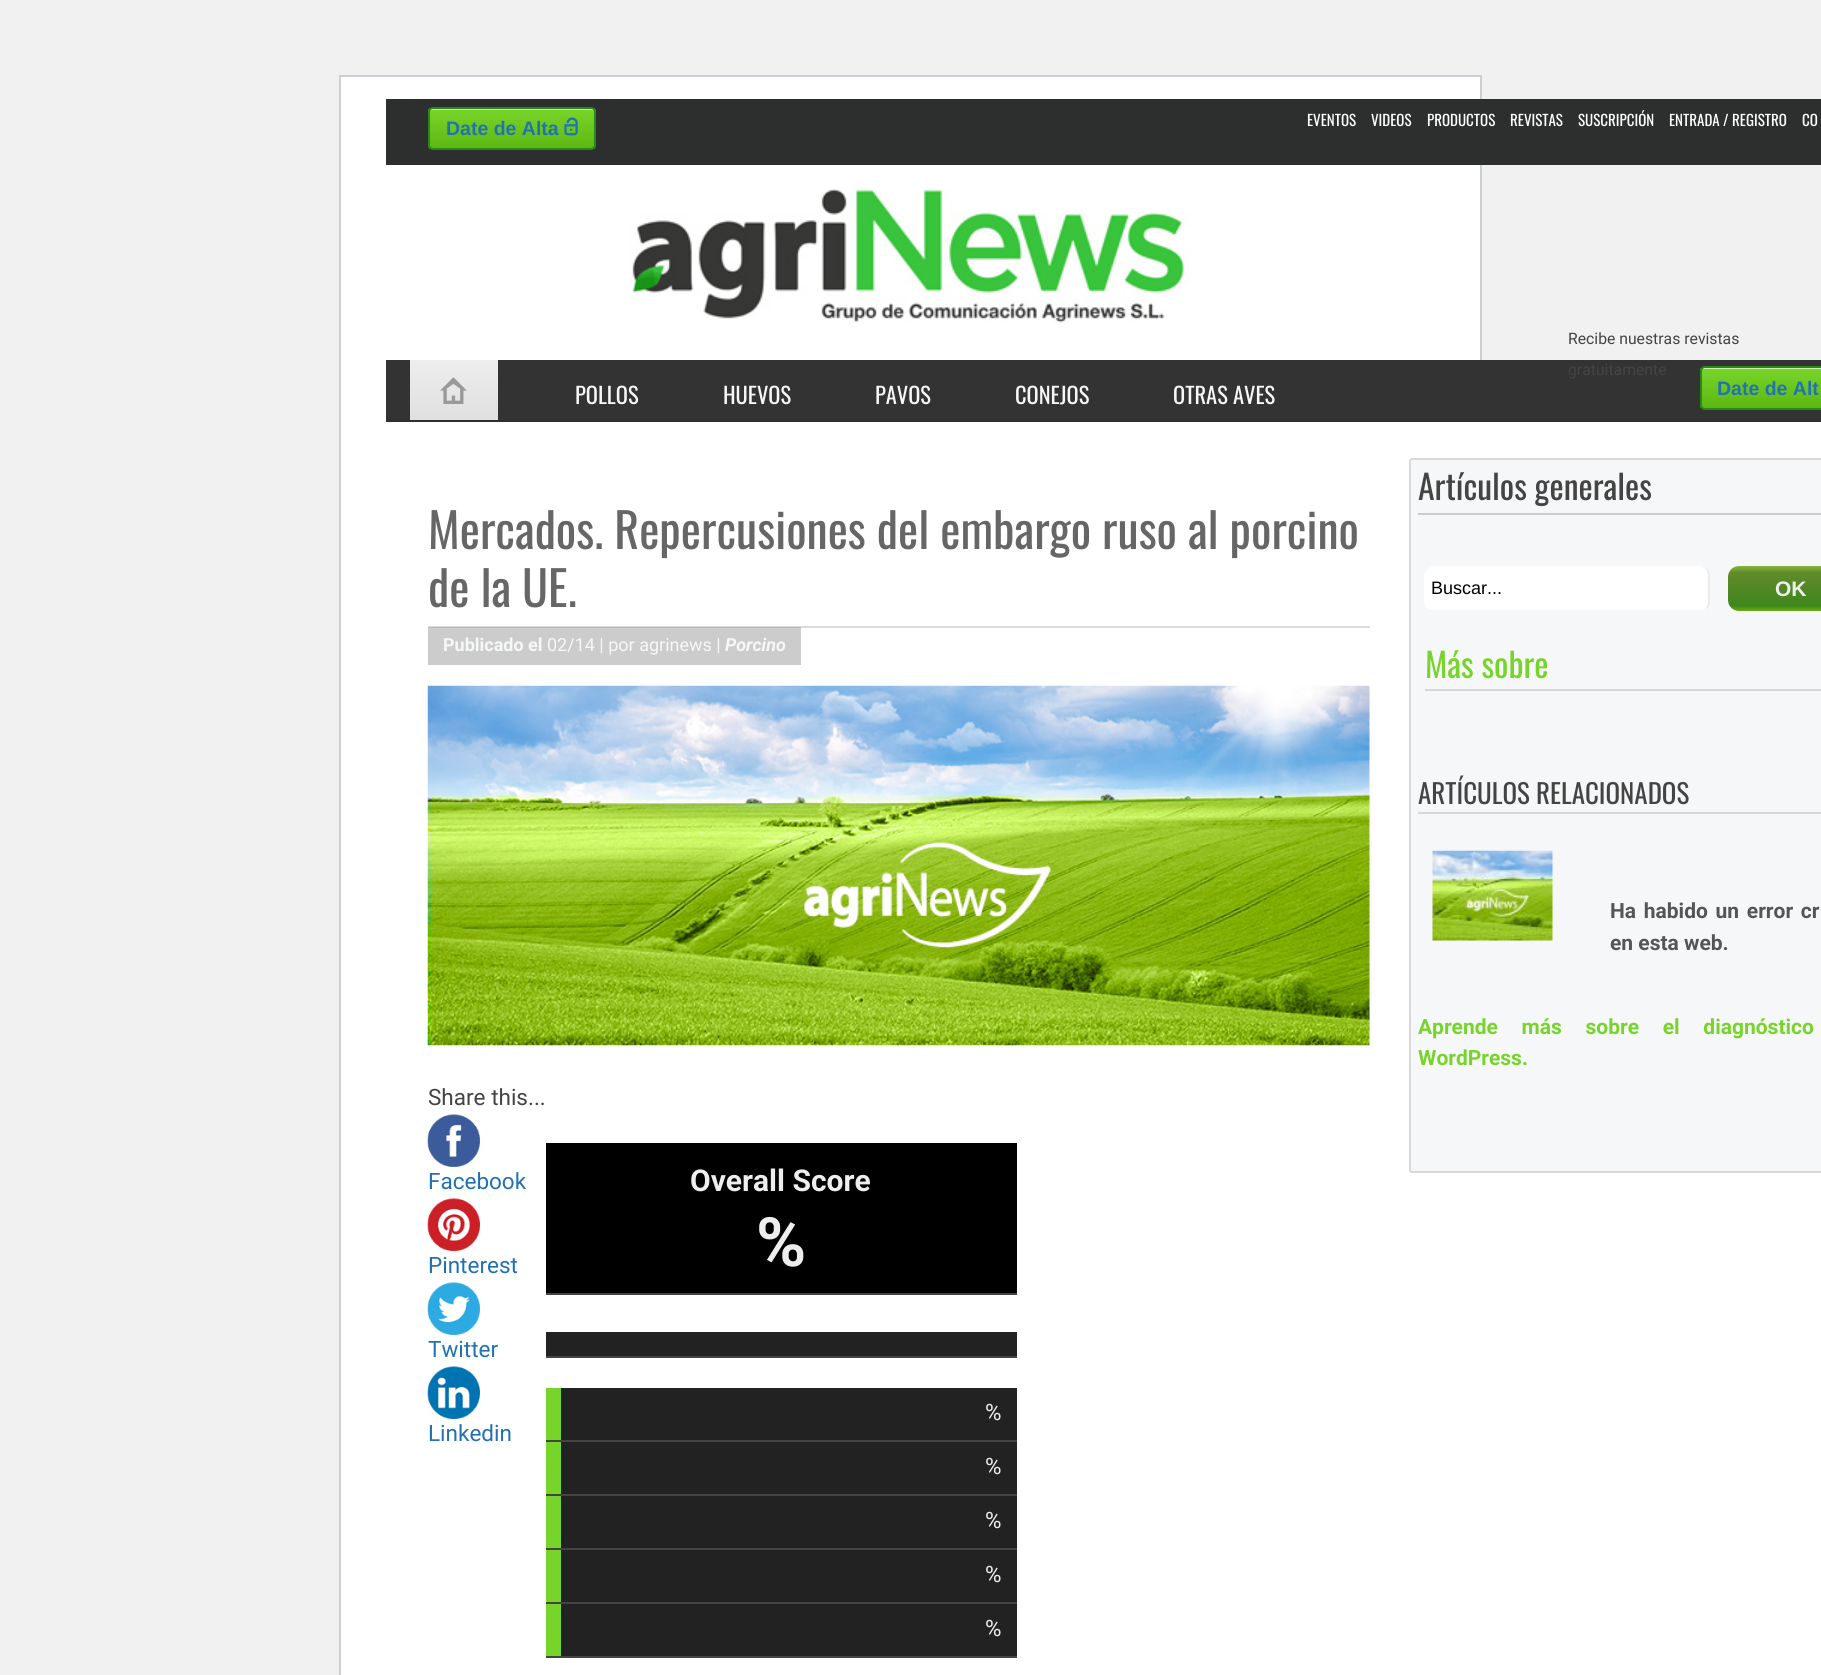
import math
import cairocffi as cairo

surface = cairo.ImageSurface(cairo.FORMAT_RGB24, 1821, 1675)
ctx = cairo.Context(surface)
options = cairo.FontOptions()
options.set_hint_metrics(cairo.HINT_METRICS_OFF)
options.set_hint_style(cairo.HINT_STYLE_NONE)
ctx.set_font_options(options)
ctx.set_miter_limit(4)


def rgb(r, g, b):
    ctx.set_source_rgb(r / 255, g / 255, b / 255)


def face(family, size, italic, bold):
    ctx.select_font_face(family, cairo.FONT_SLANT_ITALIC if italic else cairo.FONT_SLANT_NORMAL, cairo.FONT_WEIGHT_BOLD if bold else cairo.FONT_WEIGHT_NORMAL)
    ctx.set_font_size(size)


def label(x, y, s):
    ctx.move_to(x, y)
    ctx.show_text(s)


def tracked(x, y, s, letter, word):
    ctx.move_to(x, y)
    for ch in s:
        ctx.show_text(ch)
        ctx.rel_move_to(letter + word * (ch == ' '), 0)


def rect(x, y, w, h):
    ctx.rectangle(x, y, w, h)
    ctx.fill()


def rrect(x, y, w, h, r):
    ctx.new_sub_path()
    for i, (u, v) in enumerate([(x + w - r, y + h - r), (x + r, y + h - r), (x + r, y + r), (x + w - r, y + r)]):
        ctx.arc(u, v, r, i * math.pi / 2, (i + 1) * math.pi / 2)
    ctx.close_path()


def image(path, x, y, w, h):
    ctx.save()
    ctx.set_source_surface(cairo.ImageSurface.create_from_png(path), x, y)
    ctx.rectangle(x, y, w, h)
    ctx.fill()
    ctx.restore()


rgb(241, 241, 241)
ctx.paint()
rgb(255, 255, 255)
ctx.rectangle(340, 76, 1141, 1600)
ctx.fill_preserve()
rgb(204, 208, 212)
ctx.stroke()
rgb(45, 47, 47)
rect(386, 99, 1435, 66)
ctx.save()
rrect(428, 107, 168, 43, 5)
ctx.clip()
gradient = cairo.LinearGradient(429, 108, 429, 149)
gradient.add_color_stop_rgba(0.05, 0.467, 0.831, 0.165, 1)
gradient.add_color_stop_rgba(1, 0.361, 0.722, 0.067, 1)
ctx.set_source(gradient)
rect(428, 108, 168, 41)
ctx.restore()
rgb(202, 239, 171)
ctx.new_path()
ctx.move_to(432, 110)
ctx.line_to(591, 110)
ctx.curve_to(593, 110, 594, 111, 594, 112)
ctx.curve_to(594, 110, 593, 108, 591, 108)
ctx.line_to(432, 108)
ctx.curve_to(430, 108, 429, 110, 429, 112)
ctx.curve_to(429, 111, 430, 110, 432, 110)
ctx.close_path()
ctx.fill()
rrect(429, 108, 166, 41, 4)
rgb(38, 138, 22)
ctx.stroke()
face('Liberation Sans', 19.5, 0, 1)
rgb(34, 113, 177)
label(446, 135, 'Date de Alta')
image('image0.png', 564, 117, 14, 19)
face('Oswald', 15, 0, 0)
rgb(255, 255, 255)
label(1307, 126, 'EVENTOS')
label(1371, 126, 'VIDEOS')
label(1427, 126, 'PRODUCTOS')
label(1510, 126, 'REVISTAS')
label(1578, 126, 'SUSCRIPCIÓN')
label(1669, 126, 'ENTRADA / REGISTRO')
label(1802, 126, 'CO')
image('image1.png', 629, 189, 562, 134)
rgb(45, 47, 47)
rect(386, 420, 1435, 2)
face('Roboto', 15.75, 0, 0)
rgb(68, 68, 68)
label(1568, 344, 'Recibe nuestras revistas')
rgb(51, 51, 51)
rect(386, 360, 1435, 60)
rgb(68, 68, 68)
label(1568, 375, 'gratuitamente')
gradient = cairo.LinearGradient(410, 360, 410, 422)
gradient.add_color_stop_rgba(0.05, 0.929, 0.929, 0.929, 1)
gradient.add_color_stop_rgba(1, 0.875, 0.875, 0.875, 1)
ctx.set_source(gradient)
rect(410, 360, 88, 60)
image('image2.png', 440, 377, 27, 27)
face('Oswald', 22.5, 0, 0)
rgb(246, 247, 248)
label(575, 404, 'POLLOS')
label(723, 404, 'HUEVOS')
label(875, 404, 'PAVOS')
label(1015, 404, 'CONEJOS')
label(1173, 404, 'OTRAS AVES')
ctx.save()
rrect(1700, 366, 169, 44, 5)
ctx.clip()
gradient = cairo.LinearGradient(1701, 368, 1701, 408)
gradient.add_color_stop_rgba(0.05, 0.467, 0.831, 0.165, 1)
gradient.add_color_stop_rgba(1, 0.361, 0.722, 0.067, 1)
ctx.set_source(gradient)
rect(1700, 368, 121, 40)
ctx.restore()
rgb(202, 239, 171)
ctx.new_path()
ctx.move_to(1704, 369)
ctx.line_to(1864, 369)
ctx.curve_to(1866, 369, 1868, 370, 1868, 372)
ctx.line_to(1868, 371)
ctx.curve_to(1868, 369, 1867, 368, 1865, 368)
ctx.line_to(1704, 368)
ctx.curve_to(1702, 368, 1701, 369, 1701, 371)
ctx.line_to(1701, 372)
ctx.curve_to(1701, 370, 1702, 369, 1704, 369)
ctx.close_path()
ctx.fill()
rrect(1701, 367, 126, 42, 4)
rgb(38, 138, 22)
ctx.stroke()
face('Liberation Sans', 19.5, 0, 1)
rgb(34, 113, 177)
label(1717, 395, 'Date de Alt')
rgb(255, 255, 255)
rect(1480, 422, 341, 1253)
rgb(204, 204, 204)
rect(428, 628, 373, 37)
rgb(218, 218, 218)
rect(428, 626, 942, 2)
rgb(186, 186, 186)
rect(428, 627, 373, 1)
face('Oswald', 48, 0, 0)
rgb(102, 102, 102)
label(428, 549, 'Mercados. Repercusiones del embargo ruso al porcino')
label(428, 607, 'de la UE.')
face('Roboto', 18, 0, 1)
rgb(246, 247, 248)
label(443, 651, 'Publicado el')
face('Roboto', 18, 0, 0)
label(547, 651, '02/14 | por agrinews |')
face('Roboto', 18, 1, 1)
label(725, 651, 'Porcino')
image('image3.png', 427, 685, 943, 361)
face('Roboto', 22.5, 0, 0)
rgb(68, 68, 68)
label(428, 1105, 'Share this...')
image('image4.png', 427, 1114, 53, 53)
rgb(34, 113, 177)
label(428, 1189, 'Facebook')
image('image5.png', 427, 1198, 53, 53)
label(428, 1273, 'Pinterest')
image('image6.png', 427, 1282, 53, 53)
label(428, 1357, 'Twitter')
image('image7.png', 427, 1366, 53, 53)
label(428, 1441, 'Linkedin')
rgb(0, 0, 0)
rect(546, 1143, 471, 150)
rgb(68, 68, 68)
rect(546, 1293, 471, 2)
face('Roboto', 30, 0, 1)
rgb(238, 238, 238)
label(690, 1191, 'Overall Score')
face('Roboto', 68, 0, 1)
label(756, 1266, '%')
rgb(34, 34, 34)
rect(546, 1332, 471, 24)
rgb(68, 68, 68)
rect(546, 1356, 471, 2)
rgb(34, 34, 34)
rect(561, 1388, 456, 268)
rgb(68, 68, 68)
rect(546, 1440, 471, 2)
rgb(119, 212, 42)
rect(546, 1388, 15, 52)
face('Roboto', 22.5, 0, 0)
rgb(238, 238, 238)
label(985, 1420, '%')
rgb(68, 68, 68)
rect(546, 1494, 471, 2)
rgb(119, 212, 42)
rect(546, 1442, 15, 52)
rgb(238, 238, 238)
label(985, 1474, '%')
rgb(68, 68, 68)
rect(546, 1548, 471, 2)
rgb(119, 212, 42)
rect(546, 1496, 15, 52)
rgb(238, 238, 238)
label(985, 1528, '%')
rgb(68, 68, 68)
rect(546, 1602, 471, 2)
rgb(119, 212, 42)
rect(546, 1550, 15, 52)
rgb(238, 238, 238)
label(985, 1582, '%')
rgb(68, 68, 68)
rect(546, 1656, 471, 2)
rgb(119, 212, 42)
rect(546, 1604, 15, 52)
rgb(238, 238, 238)
label(985, 1636, '%')
rgb(246, 247, 248)
rrect(1410, 459, 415, 713, 2)
ctx.fill_preserve()
rgb(216, 216, 216)
ctx.stroke()
rgb(204, 204, 204)
rect(1418, 513, 403, 2)
face('Oswald', 33.75, 0, 0)
rgb(68, 68, 68)
label(1418, 500, 'Artículos generales')
rgb(255, 255, 255)
rrect(1424, 566, 286, 46, 11)
ctx.fill()
ctx.set_source_rgba(0.902, 0.902, 0.902, 0.8)
ctx.new_path()
ctx.move_to(1710, 576)
ctx.line_to(1710, 602)
ctx.curve_to(1710, 604, 1709, 607, 1707, 609)
ctx.line_to(1706, 608)
ctx.curve_to(1707, 606, 1708, 604, 1708, 602)
ctx.line_to(1708, 576)
ctx.curve_to(1708, 570, 1704, 566, 1700, 566)
ctx.curve_to(1705, 566, 1710, 570, 1710, 576)
ctx.close_path()
ctx.fill()
rgb(246, 247, 248)
ctx.new_path()
ctx.move_to(1707, 609)
ctx.line_to(1706, 608)
ctx.curve_to(1704, 609, 1702, 610, 1700, 610)
ctx.line_to(1434, 610)
ctx.curve_to(1428, 610, 1424, 606, 1424, 602)
ctx.curve_to(1424, 607, 1428, 612, 1434, 612)
ctx.line_to(1700, 612)
ctx.curve_to(1702, 612, 1705, 611, 1707, 609)
ctx.close_path()
ctx.fill()
face('Liberation Sans', 18, 0, 0)
rgb(0, 0, 0)
label(1431, 594, 'Buscar...')
gradient = cairo.LinearGradient(1728, 566, 1728, 611)
gradient.add_color_stop_rgba(0, 0.514, 0.718, 0.224, 1)
gradient.add_color_stop_rgba(0.15, 0.388, 0.541, 0.165, 1)
gradient.add_color_stop_rgba(0.88, 0.243, 0.529, 0.11, 1)
gradient.add_color_stop_rgba(1, 0.42, 0.675, 0.055, 1)
ctx.set_source(gradient)
rrect(1728, 566, 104, 45, 11)
ctx.fill()
face('Liberation Sans', 21, 0, 1)
rgb(238, 238, 238)
label(1775, 596, 'OK')
rgb(216, 216, 216)
rect(1425, 689, 396, 2)
face('Oswald', 33.75, 0, 0)
rgb(119, 212, 42)
label(1425, 678, 'Más sobre')
rgb(216, 216, 216)
rect(1418, 812, 403, 2)
face('Oswald', 27, 0, 0)
rgb(68, 68, 68)
label(1418, 804, 'ARTÍCULOS RELACIONADOS')
image('image8.png', 1432, 850, 121, 91)
face('Roboto', 21, 0, 1)
rgb(85, 85, 85)
tracked(1610, 918, 'Ha habido un error cr', 0, 2.5)
label(1610, 950, 'en esta web.')
rgb(119, 212, 42)
tracked(1418, 1034, 'Aprende más sobre el diagnóstico', 0, 18.5)
label(1418, 1065, 'WordPress.')
surface.write_to_png('render.png')
